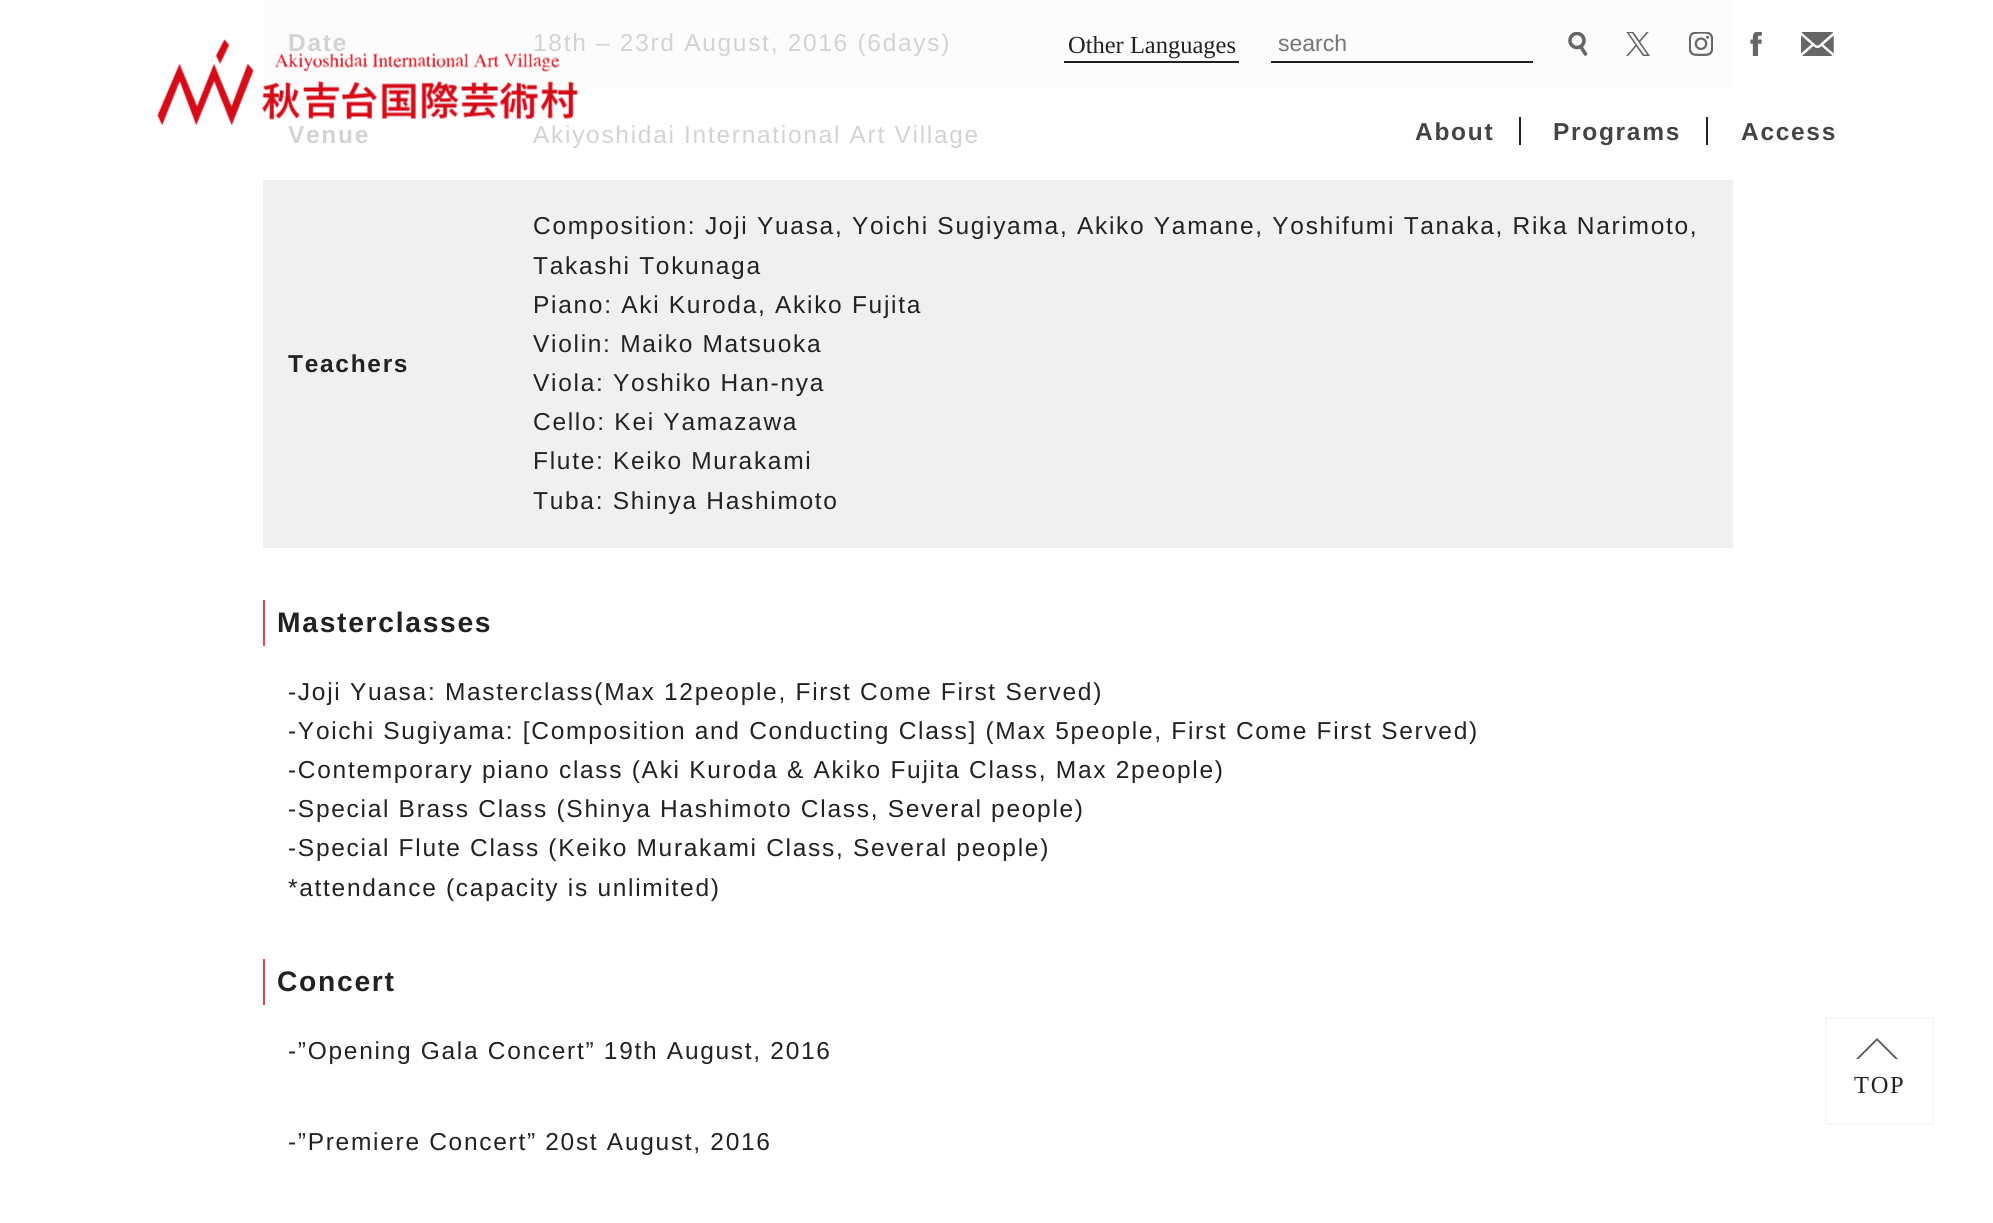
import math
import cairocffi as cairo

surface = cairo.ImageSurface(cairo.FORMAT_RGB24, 1993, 1223)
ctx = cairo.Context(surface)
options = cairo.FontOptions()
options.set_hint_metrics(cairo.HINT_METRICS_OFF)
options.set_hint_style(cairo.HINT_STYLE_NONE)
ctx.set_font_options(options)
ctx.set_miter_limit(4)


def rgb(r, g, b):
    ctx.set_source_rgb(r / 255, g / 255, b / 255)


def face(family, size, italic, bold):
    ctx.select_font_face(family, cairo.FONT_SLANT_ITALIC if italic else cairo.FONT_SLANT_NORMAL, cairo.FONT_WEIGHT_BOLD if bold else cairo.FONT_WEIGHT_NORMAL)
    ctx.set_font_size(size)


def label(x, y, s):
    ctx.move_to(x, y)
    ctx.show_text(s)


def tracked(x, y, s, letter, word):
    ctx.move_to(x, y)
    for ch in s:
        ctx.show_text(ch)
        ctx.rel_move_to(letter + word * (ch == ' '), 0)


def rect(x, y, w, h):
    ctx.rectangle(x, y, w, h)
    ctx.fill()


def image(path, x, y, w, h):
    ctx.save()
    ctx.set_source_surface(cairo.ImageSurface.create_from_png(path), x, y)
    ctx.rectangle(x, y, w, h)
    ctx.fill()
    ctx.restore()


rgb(255, 255, 255)
ctx.paint()
rgb(240, 240, 240)
rect(263, 180, 1470, 368)
rgb(252, 252, 252)
rect(263, 0, 1470, 89)
face('Liberation Sans', 24.5, 0, 1)
rgb(211, 211, 211)
tracked(288, 51, 'Date', 1.7, 0)
face('Liberation Sans', 24.5, 0, 0)
tracked(533, 51, '18th – 23rd August, 2016 (6days)', 1.7, 0)
face('Liberation Sans', 24.5, 0, 1)
tracked(288, 143, 'Venue', 1.7, 0)
face('Liberation Sans', 24.5, 0, 0)
tracked(533, 143, 'Akiyoshidai International Art Village', 1.7, 0)
face('Liberation Sans', 24.5, 0, 1)
rgb(34, 34, 34)
tracked(288, 372, 'Teachers', 1.7, 0)
face('Liberation Sans', 24.5, 0, 0)
tracked(533, 234, 'Composition: Joji Yuasa, Yoichi Sugiyama, Akiko Yamane, Yoshifumi Tanaka, Rika Narimoto,', 1.7, 0)
tracked(533, 274, 'Takashi Tokunaga', 1.7, 0)
tracked(533, 313, 'Piano: Aki Kuroda, Akiko Fujita', 1.7, 0)
tracked(533, 352, 'Violin: Maiko Matsuoka', 1.7, 0)
tracked(533, 391, 'Viola: Yoshiko Han-nya', 1.7, 0)
tracked(533, 430, 'Cello: Kei Yamazawa', 1.7, 0)
tracked(533, 469, 'Flute: Keiko Murakami', 1.7, 0)
tracked(533, 509, 'Tuba: Shinya Hashimoto', 1.7, 0)
rgb(237, 64, 87)
rect(263, 600, 2, 46)
face('Liberation Sans', 28.25, 0, 1)
rgb(34, 34, 34)
tracked(277, 632, 'Masterclasses', 1.7, 0)
face('Liberation Sans', 24.5, 0, 0)
tracked(288, 700, '-Joji Yuasa: Masterclass(Max 12people, First Come First Served)', 1.7, 0)
tracked(288, 739, '-Yoichi Sugiyama: [Composition and Conducting Class] (Max 5people, First Come First Served)', 1.7, 0)
tracked(288, 778, '-Contemporary piano class (Aki Kuroda & Akiko Fujita Class, Max 2people)', 1.7, 0)
tracked(288, 817, '-Special Brass Class (Shinya Hashimoto Class, Several people)', 1.7, 0)
tracked(288, 856, '-Special Flute Class (Keiko Murakami Class, Several people)', 1.7, 0)
tracked(288, 896, '*attendance (capacity is unlimited)', 1.7, 0)
rgb(237, 64, 87)
rect(263, 959, 2, 46)
face('Liberation Sans', 28.25, 0, 1)
rgb(34, 34, 34)
tracked(277, 991, 'Concert', 1.7, 0)
face('Liberation Sans', 24.5, 0, 0)
tracked(288, 1059, '-”Opening Gala Concert” 19th August, 2016', 1.7, 0)
tracked(288, 1150, '-”Premiere Concert” 20st August, 2016', 1.7, 0)
image('image0.png', 157, 39, 421, 87)
rect(1064, 61, 175, 2)
face('Liberation Serif', 24.5, 0, 0)
label(1068, 53, 'Other Languages')
rect(1271, 61, 262, 2)
face('Liberation Sans', 23, 0, 0)
rgb(117, 117, 117)
label(1278, 51, 'search')
ctx.save()
ctx.rectangle(1568, 32, 19, 24)
ctx.clip()
ctx.arc(1577, 40.5, 7, 0, 2 * math.pi)
rgb(102, 102, 102)
ctx.set_line_width(3.6)
ctx.stroke()
ctx.restore()
ctx.new_path()
ctx.move_to(1581, 47)
ctx.line_to(1585.5, 54)
rgb(102, 102, 102)
ctx.set_line_width(3.6)
ctx.set_line_cap(cairo.LINE_CAP_ROUND)
ctx.set_line_join(cairo.LINE_JOIN_ROUND)
ctx.stroke()
image('image1.png', 1626, 32, 24, 24)
image('image2.png', 1689, 32, 24, 24)
image('image3.png', 1750, 32, 12, 24)
image('image4.png', 1801, 32, 33, 24)
face('Liberation Sans', 24.5, 0, 1)
rgb(68, 68, 68)
tracked(1415, 140, 'About', 1.7, 0)
rgb(34, 34, 34)
rect(1519, 117, 2, 28)
rgb(68, 68, 68)
tracked(1553, 140, 'Programs', 1.7, 0)
rgb(34, 34, 34)
rect(1706, 117, 2, 28)
rgb(68, 68, 68)
tracked(1741, 140, 'Access', 1.7, 0)
ctx.rectangle(1826, 1018, 107, 106)
rgb(248, 247, 242)
ctx.set_line_width(2)
ctx.set_line_cap(cairo.LINE_CAP_BUTT)
ctx.set_line_join(cairo.LINE_JOIN_MITER)
ctx.stroke()
rgb(86, 86, 86)
ctx.new_path()
ctx.move_to(1856, 1059)
ctx.line_to(1877, 1038)
ctx.line_to(1877, 1040.5)
ctx.line_to(1858.5, 1059)
ctx.close_path()
ctx.move_to(1877, 1038)
ctx.line_to(1898, 1059)
ctx.line_to(1895.5, 1059)
ctx.line_to(1877, 1040.5)
ctx.close_path()
ctx.fill()
face('Liberation Serif', 24.5, 0, 0)
rgb(34, 34, 34)
tracked(1854, 1093, 'TOP', 1.7, 0)
surface.write_to_png('render.png')
